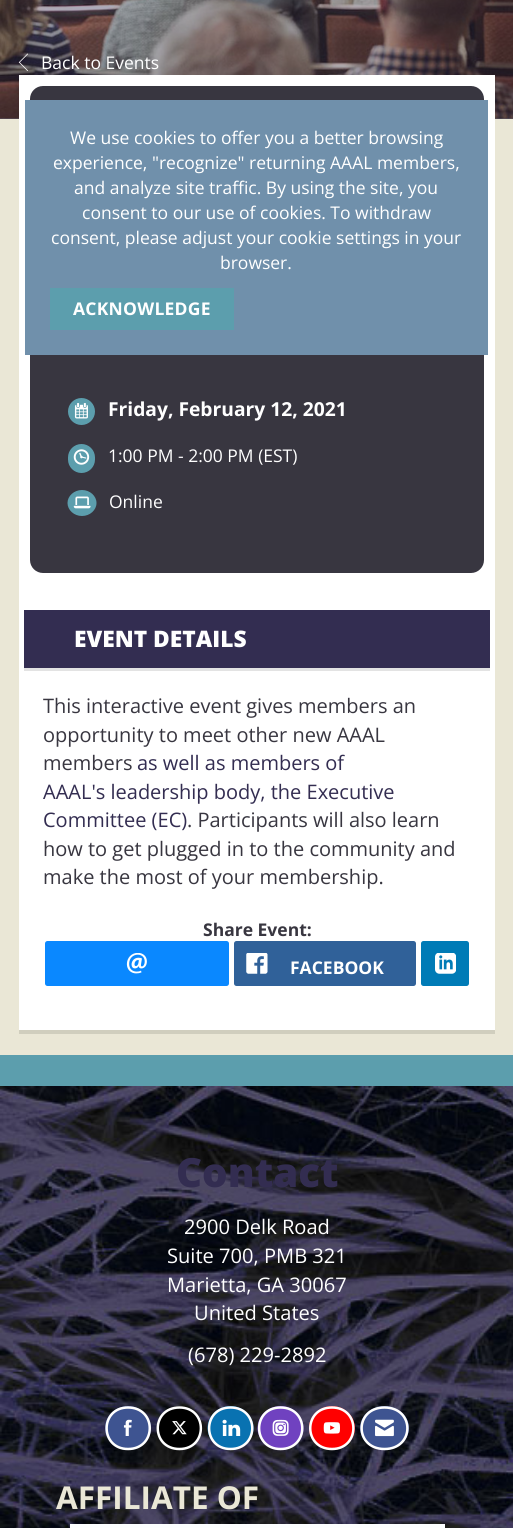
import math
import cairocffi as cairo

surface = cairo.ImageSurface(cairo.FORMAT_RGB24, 513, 1528)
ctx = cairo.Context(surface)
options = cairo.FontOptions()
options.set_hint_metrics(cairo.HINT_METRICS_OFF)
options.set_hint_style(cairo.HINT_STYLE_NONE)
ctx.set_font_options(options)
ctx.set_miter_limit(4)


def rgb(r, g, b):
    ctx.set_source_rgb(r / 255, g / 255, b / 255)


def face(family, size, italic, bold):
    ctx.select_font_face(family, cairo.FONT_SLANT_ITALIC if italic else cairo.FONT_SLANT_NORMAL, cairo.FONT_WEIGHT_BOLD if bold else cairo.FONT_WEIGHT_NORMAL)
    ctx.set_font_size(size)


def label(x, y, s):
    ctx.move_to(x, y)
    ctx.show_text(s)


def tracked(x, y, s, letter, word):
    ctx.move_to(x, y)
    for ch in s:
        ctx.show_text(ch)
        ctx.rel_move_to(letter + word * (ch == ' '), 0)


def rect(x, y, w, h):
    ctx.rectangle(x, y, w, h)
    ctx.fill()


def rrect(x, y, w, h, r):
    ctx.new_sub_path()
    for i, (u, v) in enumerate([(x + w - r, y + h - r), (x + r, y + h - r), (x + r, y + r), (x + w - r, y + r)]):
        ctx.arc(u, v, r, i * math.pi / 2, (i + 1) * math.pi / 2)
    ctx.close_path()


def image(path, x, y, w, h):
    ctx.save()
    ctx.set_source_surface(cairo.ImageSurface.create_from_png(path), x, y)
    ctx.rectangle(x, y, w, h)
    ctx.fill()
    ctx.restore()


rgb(234, 231, 214)
ctx.paint()
rgb(92, 89, 103)
rect(0, 118, 513, 1)
image('image0.png', 0, 0, 513, 119)
image('image1.png', 18, 53, 10, 18)
face('Open Sans', 17.5, 0, 0)
rgb(255, 255, 255)
label(41, 69, 'Back to Events')
rgb(208, 206, 190)
rect(19, 1030, 476, 4)
rgb(255, 255, 255)
rect(19, 75, 476, 955)
rgb(56, 54, 64)
rrect(30, 86, 454, 487, 13)
ctx.fill()
rgb(92, 158, 173)
ctx.arc(81.5, 411.5, 13.5, 0, 2 * math.pi)
ctx.fill()
image('image2.png', 74, 403, 14, 16)
face('Open Sans', 19.25, 0, 1)
rgb(255, 255, 255)
label(108, 416, 'Friday, February 12, 2021')
rgb(92, 158, 173)
rrect(68, 444, 27, 29, 13.5)
ctx.fill()
image('image3.png', 73, 449, 17, 16)
face('Open Sans', 17.5, 0, 0)
rgb(255, 255, 255)
label(108, 462, '1:00 PM - 2:00 PM (EST)')
rgb(92, 158, 173)
ctx.new_path()
ctx.move_to(82, 490)
ctx.curve_to(90, 490, 96.5, 496, 96.5, 503)
ctx.curve_to(96.5, 510, 90, 516, 82, 516)
ctx.curve_to(74, 516, 67.5, 510, 67.5, 503)
ctx.curve_to(67.5, 496, 74, 490, 82, 490)
ctx.close_path()
ctx.fill()
image('image4.png', 73, 496, 18, 13)
rgb(255, 255, 255)
label(109, 508, 'Online')
rgb(227, 227, 227)
rect(24, 668, 466, 3)
rgb(51, 45, 81)
rect(24, 610, 466, 58)
face('Open Sans ExtraBold', 22.75, 0, 0)
rgb(255, 255, 255)
label(74, 647, 'EVENT DETAILS')
face('Open Sans', 20, 0, 0)
rgb(56, 54, 64)
label(43, 713, 'This interactive event gives members an')
label(43, 742, 'opportunity to meet other new AAAL')
label(43, 770, 'members')
rgb(51, 45, 81)
label(137, 770, 'as well as members of')
label(43, 799, 'AAAL\'s leadership body, the Executive')
label(43, 827, 'Committee (EC)')
rgb(56, 54, 64)
label(187, 827, '. Participants will also learn')
label(43, 856, 'how to get plugged in to the community and')
label(43, 884, 'make the most of your membership.')
face('Open Sans', 17.5, 0, 1)
label(203, 936, 'Share Event:')
rgb(10, 136, 255)
rrect(45, 941, 184, 45, 2.5)
ctx.fill()
image('image5.png', 126, 953, 21, 21)
rgb(48, 97, 153)
rrect(234, 941, 182, 45, 2.5)
ctx.fill()
image('image6.png', 246, 953, 22, 21)
rgb(255, 255, 255)
label(290, 974, 'FACEBOOK')
rgb(0, 123, 182)
rrect(421, 941, 48, 45, 2.5)
ctx.fill()
image('image7.png', 435, 953, 21, 21)
rgb(112, 144, 171)
rect(25, 100, 463, 255)
face('Open Sans', 17.5, 0, 0)
rgb(255, 255, 255)
label(70, 144, 'We use cookies to offer you a better browsing')
label(53, 169, 'experience, "recognize" returning AAAL members,')
label(74, 194, 'and analyze site traffic. By using the site, you')
label(82, 219, 'consent to our use of cookies. To withdraw')
label(51, 244, 'consent, please adjust your cookie settings in your')
label(220, 269, 'browser.')
rgb(92, 158, 173)
rect(50, 288, 184, 42)
face('Open Sans', 17.5, 0, 1)
rgb(255, 255, 255)
tracked(73, 315, 'ACKNOWLEDGE', 0.25, 0)
rgb(92, 158, 173)
rect(0, 1055, 513, 31)
image('image8.png', 0, 1086, 513, 442)
face('Open Sans ExtraBold', 40.25, 0, 0)
rgb(51, 45, 81)
label(176, 1187, 'Contact')
face('Open Sans', 20.1, 0, 0)
rgb(255, 255, 255)
label(184, 1234, '2900 Delk Road')
label(167, 1263, 'Suite 700, PMB 321')
label(167, 1292, 'Marietta, GA 30067')
label(194, 1320, 'United States')
label(188, 1362, '(678) 229-2892')
rgb(62, 84, 145)
ctx.new_path()
ctx.move_to(128, 1406)
ctx.curve_to(140.5, 1406, 151, 1416, 151, 1428)
ctx.curve_to(151, 1440, 140.5, 1450, 128, 1450)
ctx.curve_to(115.5, 1450, 105, 1440, 105, 1428)
ctx.curve_to(105, 1416, 115.5, 1406, 128, 1406)
ctx.close_path()
ctx.fill()
ctx.new_path()
ctx.move_to(128, 1407.5)
ctx.curve_to(157, 1407.5, 157, 1449, 128, 1449)
ctx.curve_to(99.5, 1449, 99.5, 1407.5, 128, 1407.5)
ctx.close_path()
rgb(255, 255, 255)
ctx.set_line_width(2.5)
ctx.stroke()
image('image9.png', 123, 1419, 9, 17)
rgb(0, 0, 0)
ctx.new_path()
ctx.move_to(179.5, 1406)
ctx.curve_to(192, 1406, 202.5, 1416, 202.5, 1428)
ctx.curve_to(202.5, 1440, 192, 1450, 179.5, 1450)
ctx.curve_to(167, 1450, 156.5, 1440, 156.5, 1428)
ctx.curve_to(156.5, 1416, 167, 1406, 179.5, 1406)
ctx.close_path()
ctx.fill()
ctx.new_path()
ctx.move_to(179.5, 1407.5)
ctx.curve_to(208, 1407.5, 208, 1449, 179.5, 1449)
ctx.curve_to(150.5, 1449, 150.5, 1407.5, 179.5, 1407.5)
ctx.close_path()
rgb(255, 255, 255)
ctx.stroke()
image('image10.png', 172, 1421, 15, 14)
rgb(9, 114, 177)
ctx.new_path()
ctx.move_to(230.5, 1406)
ctx.curve_to(243, 1406, 253.5, 1416, 253.5, 1428)
ctx.curve_to(253.5, 1440, 243, 1450, 230.5, 1450)
ctx.curve_to(218, 1450, 207.5, 1440, 207.5, 1428)
ctx.curve_to(207.5, 1416, 218, 1406, 230.5, 1406)
ctx.close_path()
ctx.fill()
ctx.new_path()
ctx.move_to(230.5, 1407.5)
ctx.curve_to(259.5, 1407.5, 259.5, 1449, 230.5, 1449)
ctx.curve_to(202, 1449, 202, 1407.5, 230.5, 1407.5)
ctx.close_path()
rgb(255, 255, 255)
ctx.stroke()
image('image11.png', 222, 1419, 19, 17)
rgb(112, 66, 192)
ctx.new_path()
ctx.move_to(280.5, 1406)
ctx.curve_to(293, 1406, 303.5, 1416, 303.5, 1428)
ctx.curve_to(303.5, 1440, 293, 1450, 280.5, 1450)
ctx.curve_to(268, 1450, 257.5, 1440, 257.5, 1428)
ctx.curve_to(257.5, 1416, 268, 1406, 280.5, 1406)
ctx.close_path()
ctx.fill()
ctx.new_path()
ctx.move_to(280.5, 1407.5)
ctx.curve_to(309.5, 1407.5, 309.5, 1449, 280.5, 1449)
ctx.curve_to(252, 1449, 252, 1407.5, 280.5, 1407.5)
ctx.close_path()
rgb(255, 255, 255)
ctx.stroke()
image('image12.png', 272, 1419, 17, 17)
rgb(255, 0, 0)
ctx.new_path()
ctx.move_to(332, 1406)
ctx.curve_to(344.5, 1406, 355, 1416, 355, 1428)
ctx.curve_to(355, 1440, 344.5, 1450, 332, 1450)
ctx.curve_to(319.5, 1450, 309, 1440, 309, 1428)
ctx.curve_to(309, 1416, 319.5, 1406, 332, 1406)
ctx.close_path()
ctx.fill()
ctx.new_path()
ctx.move_to(332, 1407.5)
ctx.curve_to(360.5, 1407.5, 360.5, 1449, 332, 1449)
ctx.curve_to(303, 1449, 303, 1407.5, 332, 1407.5)
ctx.close_path()
rgb(255, 255, 255)
ctx.stroke()
image('image13.png', 323, 1422, 17, 12)
rgb(62, 84, 145)
ctx.new_path()
ctx.move_to(384.5, 1406)
ctx.curve_to(398, 1406, 409, 1416, 409, 1428)
ctx.curve_to(409, 1440, 398, 1450, 384.5, 1450)
ctx.curve_to(371, 1450, 360, 1440, 360, 1428)
ctx.curve_to(360, 1416, 371, 1406, 384.5, 1406)
ctx.close_path()
ctx.fill()
ctx.new_path()
ctx.move_to(384.5, 1407.5)
ctx.curve_to(415, 1407.5, 415, 1449, 384.5, 1449)
ctx.curve_to(354, 1449, 354, 1407.5, 384.5, 1407.5)
ctx.close_path()
rgb(255, 255, 255)
ctx.stroke()
image('image14.png', 375, 1419, 19, 18)
face('Open Sans', 31.5, 0, 1)
rgb(234, 231, 214)
label(56, 1509, 'AFFILIATE OF')
rgb(252, 254, 255)
rect(70, 1524, 375, 4)
surface.write_to_png('render.png')
